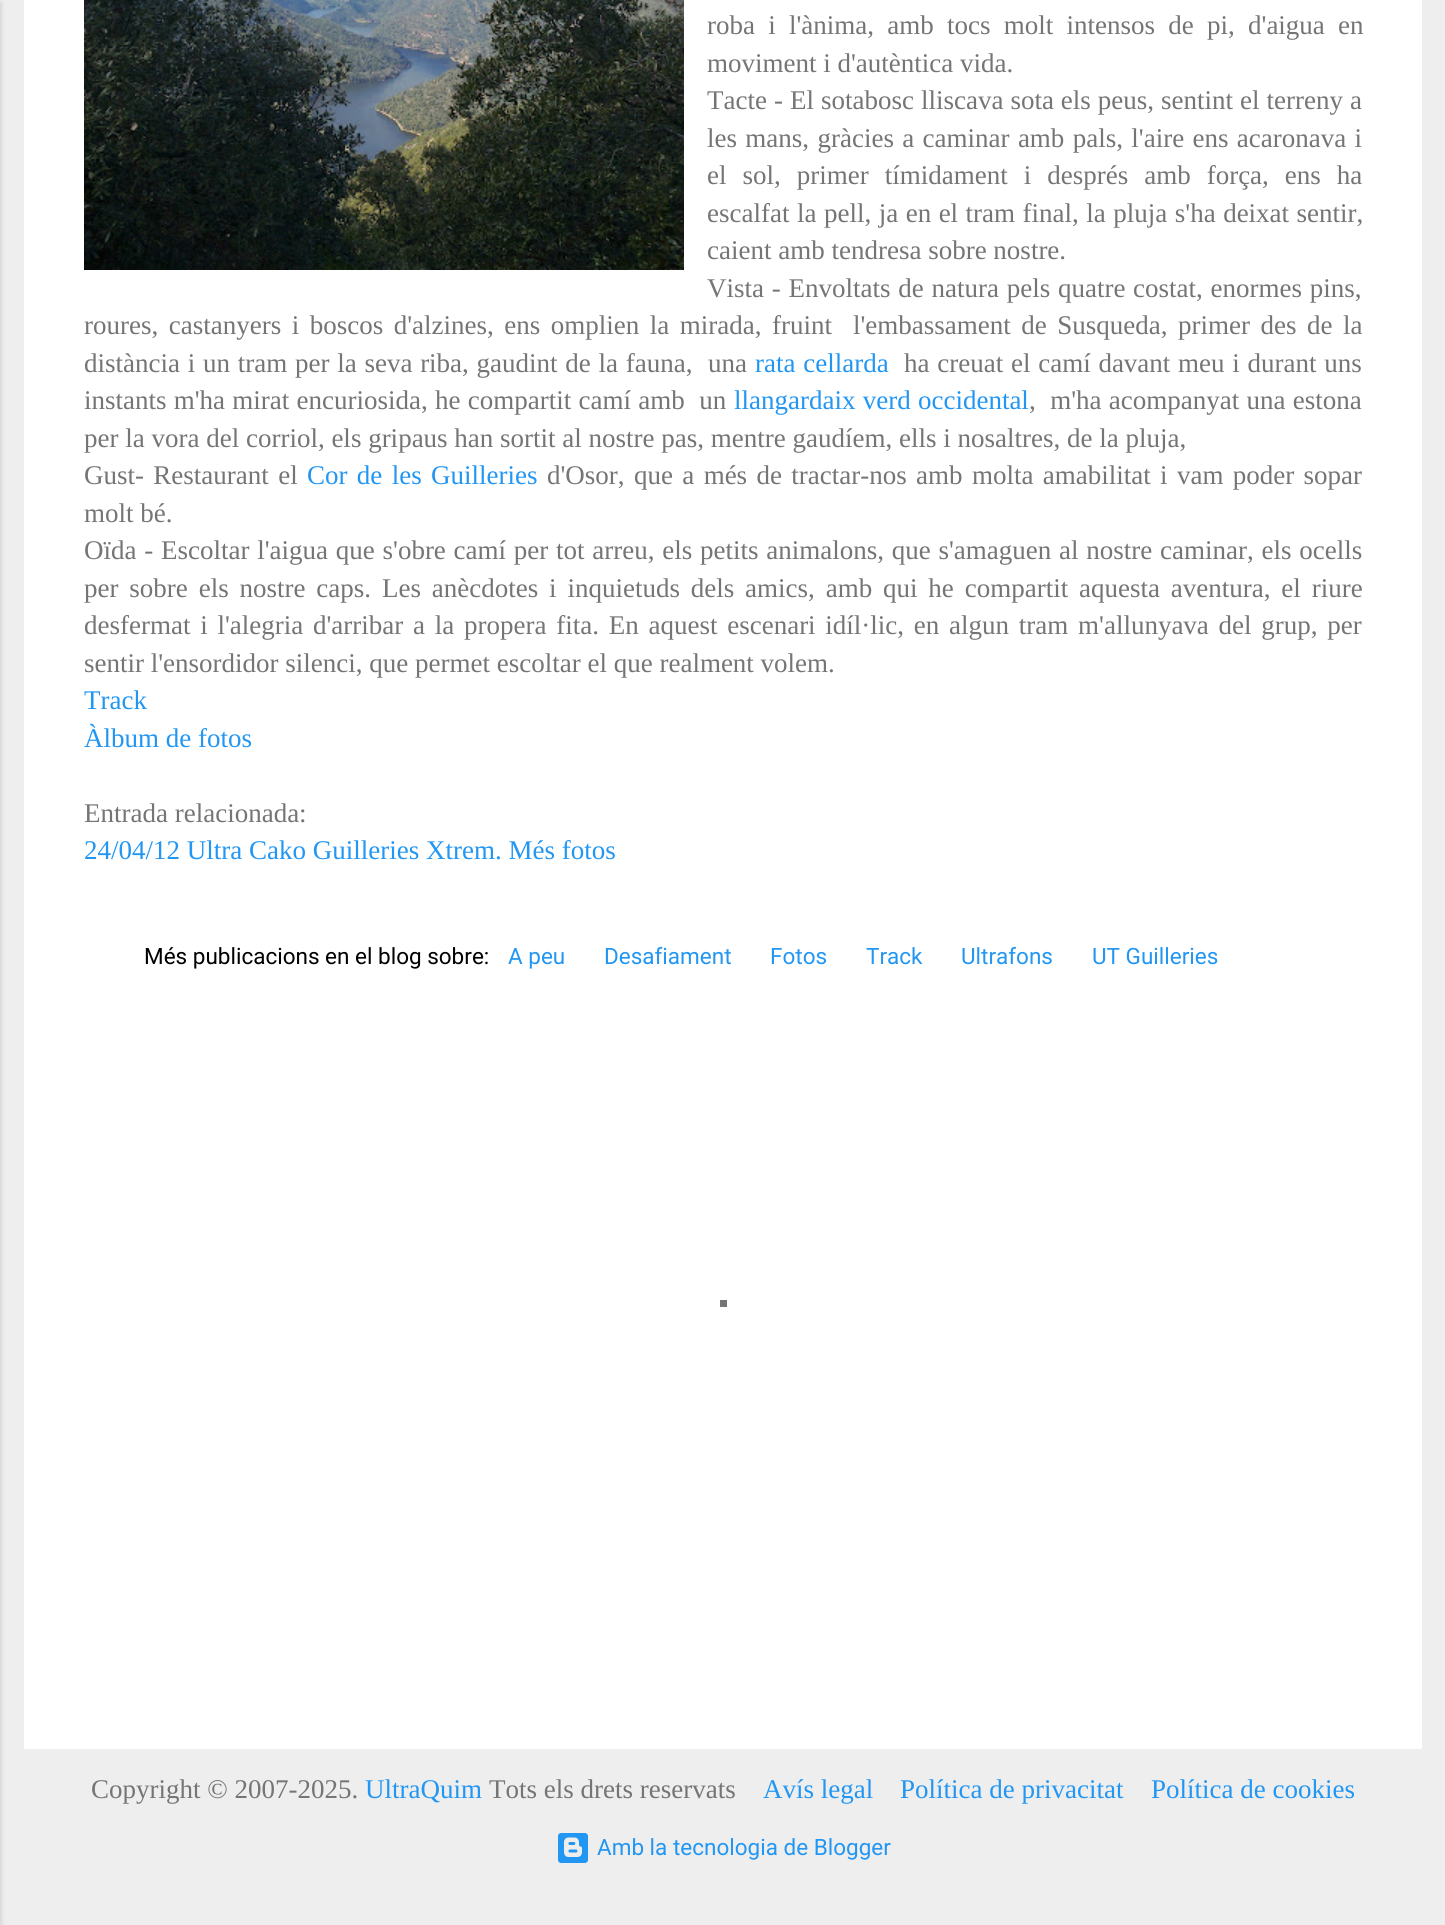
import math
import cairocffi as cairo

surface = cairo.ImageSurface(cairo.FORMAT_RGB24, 1445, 1925)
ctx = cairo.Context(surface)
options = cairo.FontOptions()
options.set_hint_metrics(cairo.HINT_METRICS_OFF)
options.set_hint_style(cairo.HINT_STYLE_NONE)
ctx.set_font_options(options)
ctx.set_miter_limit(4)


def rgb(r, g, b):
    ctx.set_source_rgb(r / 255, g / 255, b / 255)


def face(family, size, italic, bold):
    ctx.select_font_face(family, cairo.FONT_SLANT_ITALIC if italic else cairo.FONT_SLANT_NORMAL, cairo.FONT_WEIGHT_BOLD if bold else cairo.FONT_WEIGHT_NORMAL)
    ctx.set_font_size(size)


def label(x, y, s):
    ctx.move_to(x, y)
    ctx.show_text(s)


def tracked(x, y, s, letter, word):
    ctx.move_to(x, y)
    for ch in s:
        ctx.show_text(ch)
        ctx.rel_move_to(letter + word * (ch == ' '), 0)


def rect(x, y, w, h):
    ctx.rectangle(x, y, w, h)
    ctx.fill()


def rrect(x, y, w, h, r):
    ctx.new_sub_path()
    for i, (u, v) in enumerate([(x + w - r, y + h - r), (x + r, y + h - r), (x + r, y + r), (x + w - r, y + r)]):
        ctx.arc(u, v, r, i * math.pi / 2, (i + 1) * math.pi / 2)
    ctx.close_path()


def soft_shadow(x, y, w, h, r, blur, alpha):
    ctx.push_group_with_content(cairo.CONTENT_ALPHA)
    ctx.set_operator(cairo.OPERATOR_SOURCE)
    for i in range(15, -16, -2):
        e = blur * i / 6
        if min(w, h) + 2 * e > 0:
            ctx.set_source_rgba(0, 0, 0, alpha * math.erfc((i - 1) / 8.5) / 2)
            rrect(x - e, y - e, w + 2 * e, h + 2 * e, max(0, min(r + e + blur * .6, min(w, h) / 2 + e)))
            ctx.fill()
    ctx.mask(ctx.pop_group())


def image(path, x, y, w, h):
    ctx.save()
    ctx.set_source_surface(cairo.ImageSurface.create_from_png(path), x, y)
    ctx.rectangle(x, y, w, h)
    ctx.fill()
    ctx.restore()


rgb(238, 238, 238)
ctx.paint()
rgb(0, 0, 0)
soft_shadow(-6, 2, 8, 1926, 0, 2, 0.1)
rgb(255, 255, 255)
rect(24, 0, 1398, 1749)
image('image0.png', 84, 0, 600, 270)
face('Liberation Serif', 27, 0, 0)
rgb(117, 117, 117)
tracked(707, 34, 'roba i l\'ànima, amb tocs molt intensos de pi, d\'aigua en', 0, 6.5)
label(707, 72, 'moviment i d\'autèntica vida.')
tracked(707, 109, 'Tacte - El sotabosc lliscava sota els peus, sentint el terreny a', 0, 0.25)
tracked(707, 147, 'les mans, gràcies a caminar amb pals, l\'aire ens acaronava i', 0, 1.6)
tracked(707, 184, 'el sol, primer tímidament i després amb força, ens ha', 0, 9.25)
tracked(707, 222, 'escalfat la pell, ja en el tram final, la pluja s\'ha deixat sentir,', 0, 0.75)
label(707, 259, 'caient amb tendresa sobre nostre.')
tracked(707, 297, 'Vista - Envoltats de natura pels quatre costat, enormes pins,', 0, 1)
tracked(84, 334, 'roures, castanyers i boscos d\'alzines, ens omplien la mirada, fruint  l\'embassament de Susqueda, primer des de la', 0, 3.75)
tracked(84, 372, 'distància i un tram per la seva riba, gaudint de la fauna,  una', 0, 1)
rgb(33, 150, 243)
tracked(755, 372, 'rata cellarda', 0, 1)
rgb(117, 117, 117)
tracked(904, 372, 'ha creuat el camí davant meu i durant uns', 0, 1)
tracked(84, 409, 'instants m\'ha mirat encuriosida, he compartit camí amb  un', 0, 0.5)
rgb(33, 150, 243)
tracked(734, 409, 'llangardaix verd occidental', 0, 0.5)
rgb(117, 117, 117)
tracked(1029, 409, ',  m\'ha acompanyat una estona', 0, 0.5)
label(84, 447, 'per la vora del corriol, els gripaus han sortit al nostre pas, mentre gaudíem, ells i nosaltres, de la pluja,')
tracked(84, 484, 'Gust- Restaurant el', 0, 2.6)
rgb(33, 150, 243)
tracked(307, 484, 'Cor de les Guilleries', 0, 2.6)
rgb(117, 117, 117)
tracked(547, 484, 'd\'Osor, que a més de tractar-nos amb molta amabilitat i vam poder sopar', 0, 2.6)
label(84, 522, 'molt bé.')
tracked(84, 559, 'Oïda - Escoltar l\'aigua que s\'obre camí per tot arreu, els petits animalons, que s\'amaguen al nostre caminar, els ocells', 0, 1)
tracked(84, 597, 'per sobre els nostre caps. Les anècdotes i inquietuds dels amics, amb qui he compartit aquesta aventura, el riure', 0, 4.1)
tracked(84, 634, 'desfermat i l\'alegria d\'arribar a la propera fita. En aquest escenari idíl·lic, en algun tram m\'allunyava del grup, per', 0, 3)
label(84, 672, 'sentir l\'ensordidor silenci, que permet escoltar el que realment volem.')
rgb(33, 150, 243)
label(84, 709, 'Track')
label(84, 747, 'Àlbum de fotos')
rgb(117, 117, 117)
label(84, 822, 'Entrada relacionada:')
rgb(33, 150, 243)
label(84, 859, '24/04/12 Ultra Cako Guilleries Xtrem. Més fotos')
face('Roboto', 22.5, 0, 0)
rgb(0, 0, 0)
label(144, 964, 'Més publicacions en el blog sobre:')
rgb(33, 150, 243)
label(508, 964, 'A peu')
label(604, 964, 'Desafiament')
label(770, 964, 'Fotos')
label(866, 964, 'Track')
label(961, 964, 'Ultrafons')
label(1092, 964, 'UT Guilleries')
face('Liberation Serif', 27, 0, 0)
rgb(117, 117, 117)
label(91, 1798, 'Copyright © 2007-2025.')
rgb(33, 150, 243)
label(365, 1798, 'UltraQuim')
rgb(117, 117, 117)
label(489, 1798, 'Tots els drets reservats')
rgb(33, 150, 243)
label(763, 1798, 'Avís legal')
label(900, 1798, 'Política de privacitat')
label(1151, 1798, 'Política de cookies')
image('image1.png', 558, 1833, 30, 30)
face('Roboto', 22.5, 0, 0)
label(597, 1855, 'Amb la tecnologia de Blogger')
rgb(117, 117, 117)
rect(720, 1300, 7, 7)
surface.write_to_png('render.png')
